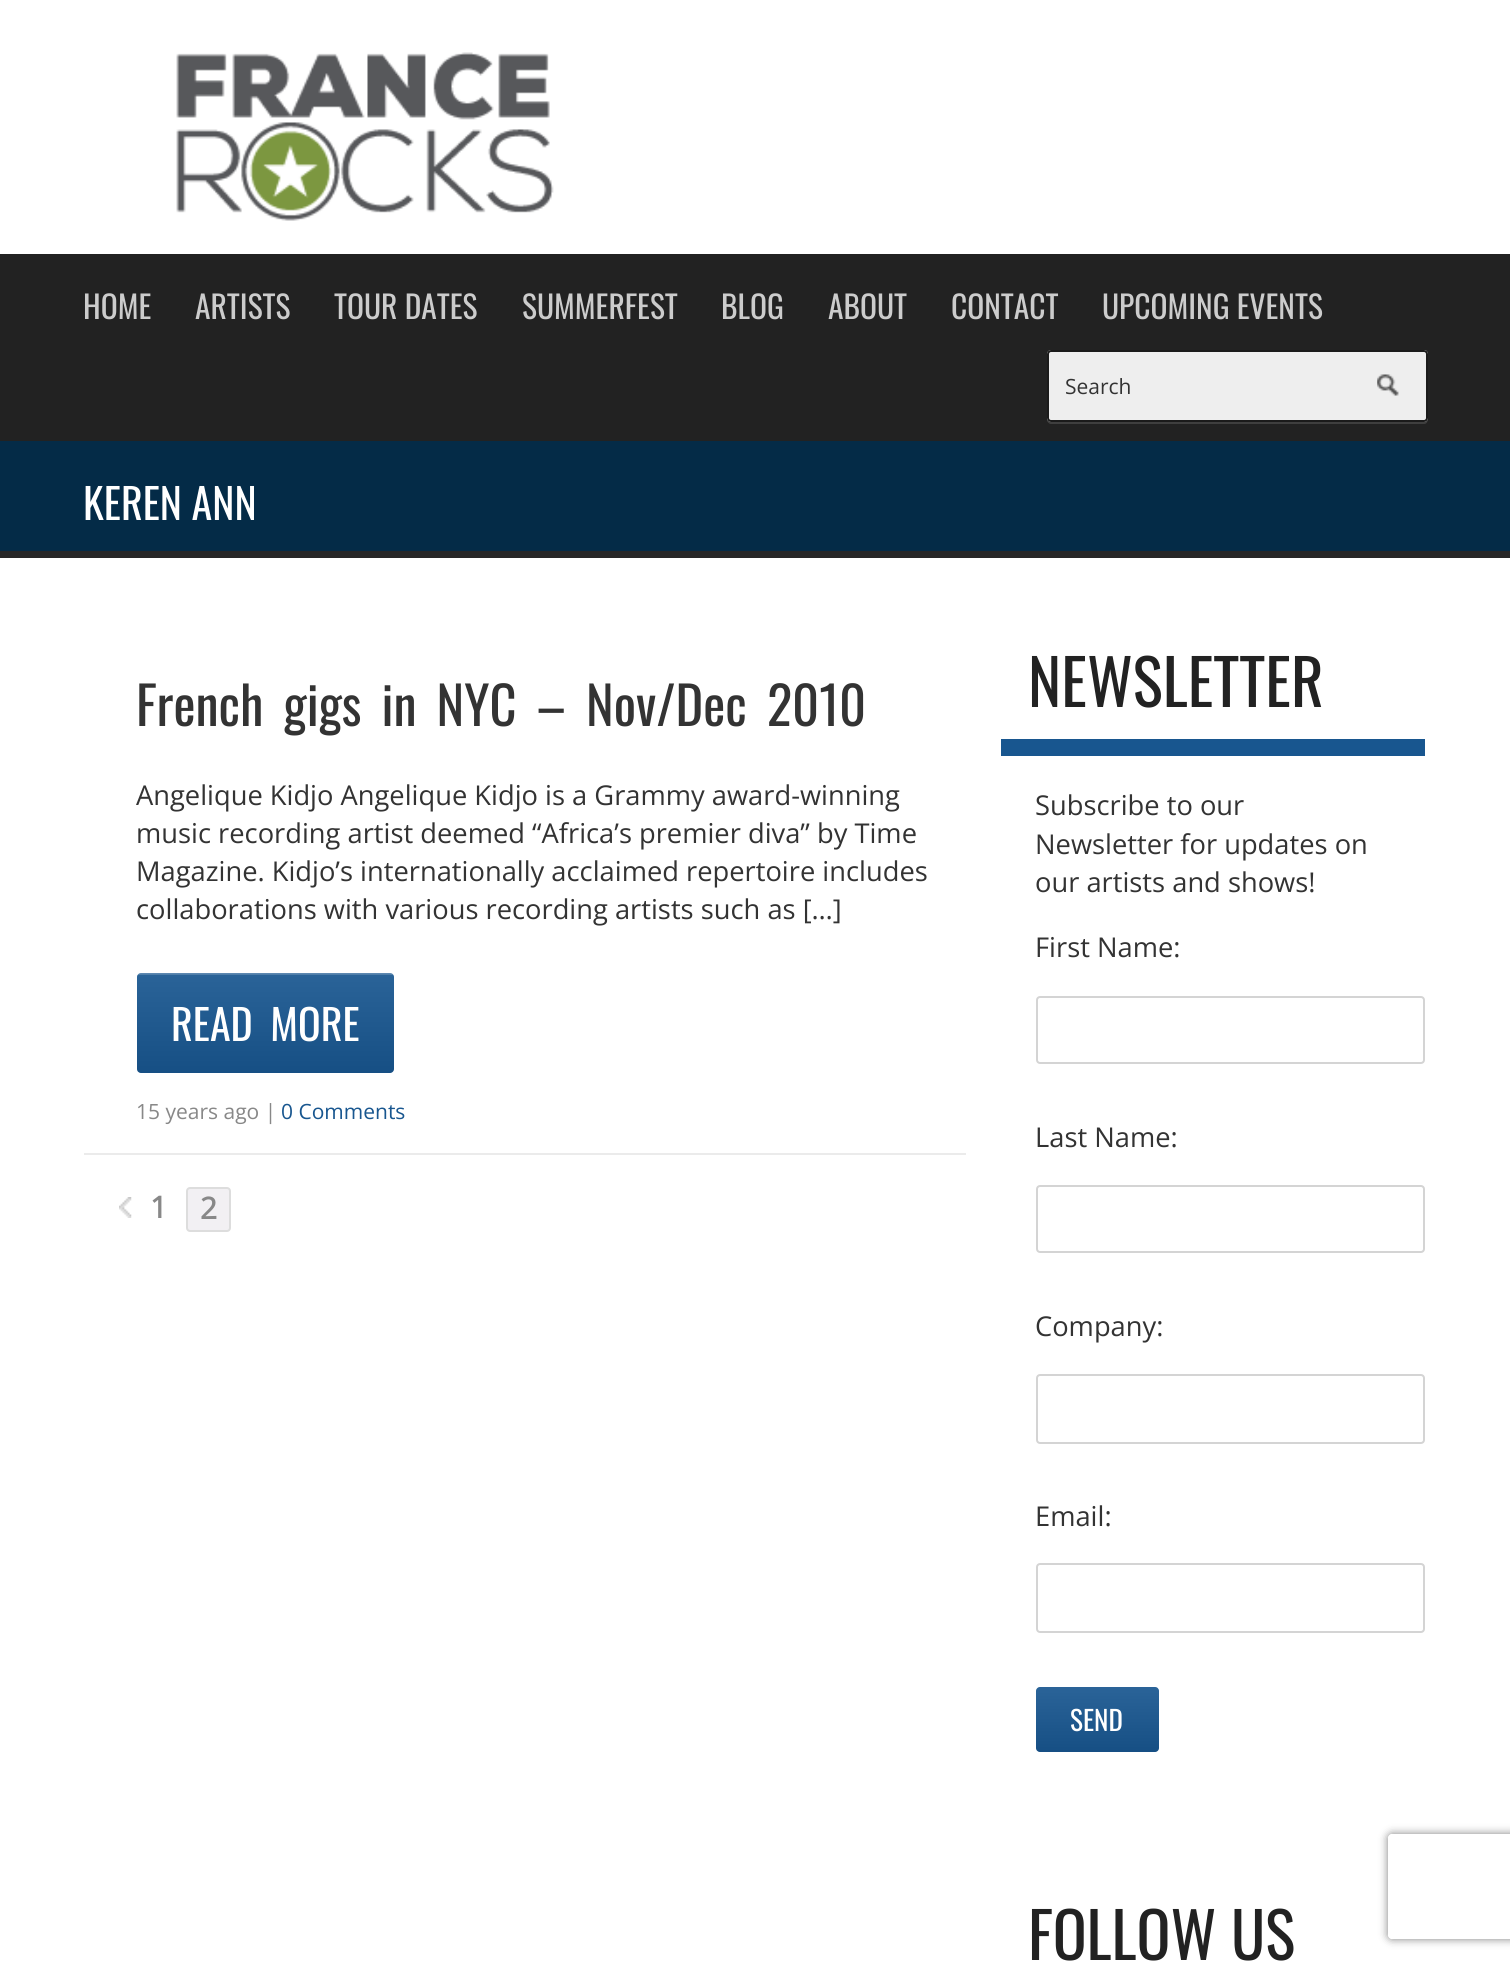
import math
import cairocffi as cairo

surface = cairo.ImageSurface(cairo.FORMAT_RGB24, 1510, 1962)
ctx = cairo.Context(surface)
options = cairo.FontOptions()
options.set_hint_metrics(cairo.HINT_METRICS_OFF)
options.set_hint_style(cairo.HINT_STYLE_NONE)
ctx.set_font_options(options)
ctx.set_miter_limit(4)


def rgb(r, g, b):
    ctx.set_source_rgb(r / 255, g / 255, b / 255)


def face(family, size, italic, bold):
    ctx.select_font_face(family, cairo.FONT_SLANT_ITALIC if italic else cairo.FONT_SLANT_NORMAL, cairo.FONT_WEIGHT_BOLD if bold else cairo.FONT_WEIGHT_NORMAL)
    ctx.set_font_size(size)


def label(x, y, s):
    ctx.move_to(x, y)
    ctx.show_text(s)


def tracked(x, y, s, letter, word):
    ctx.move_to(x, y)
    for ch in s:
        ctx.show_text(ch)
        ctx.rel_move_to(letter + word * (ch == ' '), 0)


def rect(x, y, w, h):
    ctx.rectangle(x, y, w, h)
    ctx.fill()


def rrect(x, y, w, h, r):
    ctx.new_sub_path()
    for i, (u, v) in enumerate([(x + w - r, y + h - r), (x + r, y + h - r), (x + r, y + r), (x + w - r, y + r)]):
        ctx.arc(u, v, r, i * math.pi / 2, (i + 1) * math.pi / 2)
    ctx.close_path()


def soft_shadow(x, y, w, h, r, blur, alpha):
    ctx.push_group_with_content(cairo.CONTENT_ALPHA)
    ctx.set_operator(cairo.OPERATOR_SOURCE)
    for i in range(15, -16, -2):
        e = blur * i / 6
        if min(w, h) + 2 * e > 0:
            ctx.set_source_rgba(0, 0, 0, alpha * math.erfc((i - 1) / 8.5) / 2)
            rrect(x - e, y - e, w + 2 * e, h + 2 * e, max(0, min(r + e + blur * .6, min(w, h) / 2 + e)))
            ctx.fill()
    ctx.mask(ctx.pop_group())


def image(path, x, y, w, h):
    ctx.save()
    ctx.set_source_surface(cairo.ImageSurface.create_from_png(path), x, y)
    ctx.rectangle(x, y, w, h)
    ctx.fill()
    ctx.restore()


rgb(255, 255, 255)
ctx.paint()
rgb(34, 34, 34)
rect(0, 254, 1510, 187)
image('image0.png', 176, 52, 378, 169)
face('Oswald', 31.5, 0, 0)
rgb(204, 204, 204)
label(83, 319, 'HOME')
label(195, 319, 'ARTISTS')
label(334, 319, 'TOUR DATES')
label(522, 319, 'SUMMERFEST')
label(721, 319, 'BLOG')
label(828, 319, 'ABOUT')
label(951, 319, 'CONTACT')
label(1102, 319, 'UPCOMING EVENTS')
rgb(63, 63, 63)
ctx.new_path()
ctx.move_to(1047, 420)
ctx.curve_to(1047, 422, 1049, 424, 1051, 424)
ctx.line_to(1424, 424)
ctx.curve_to(1427, 424, 1428, 421, 1428, 418)
ctx.curve_to(1428, 420, 1426, 422, 1424, 422)
ctx.line_to(1050, 422)
ctx.curve_to(1049, 422, 1048, 421, 1047, 420)
ctx.close_path()
ctx.fill()
rgb(238, 238, 238)
rrect(1047, 350, 381, 72, 4)
ctx.fill()
image('image1.png', 1377, 374, 22, 22)
rrect(1048, 351, 379, 70, 3)
rgb(27, 27, 27)
ctx.stroke()
face('Open Sans', 21, 0, 0)
rgb(51, 51, 51)
label(1065, 394, 'Search')
rgb(4, 43, 71)
rect(0, 441, 1510, 110)
rgb(39, 39, 39)
rect(0, 551, 1510, 7)
face('Oswald', 42, 0, 0)
rgb(255, 255, 255)
label(83, 520, 'KEREN ANN')
rgb(235, 235, 235)
rect(84, 1153, 882, 2)
face('Oswald', 52.5, 0, 0)
rgb(51, 51, 51)
tracked(136, 726, 'French gigs in NYC – Nov/Dec 2010', 0, 8)
face('Open Sans', 27.3, 0, 0)
label(136, 805, 'Angelique Kidjo Angelique Kidjo is a Grammy award-winning')
label(136, 843, 'music recording artist deemed “Africa’s premier diva” by Time')
label(136, 881, 'Magazine. Kidjo’s internationally acclaimed repertoire includes')
label(136, 919, 'collaborations with various recording artists such as […]')
rgb(24, 86, 143)
rrect(137, 973, 257, 100, 4)
ctx.fill()
gradient = cairo.LinearGradient(137, 1073, 137, 973)
gradient.add_color_stop_rgba(0, 0, 0, 0, 0.08)
gradient.add_color_stop_rgba(0.5, 0.502, 0.502, 0.502, 0.08)
gradient.add_color_stop_rgba(1, 1, 1, 1, 0.08)
ctx.set_source(gradient)
rrect(137, 973, 257, 100, 4)
ctx.fill()
image('image2.png', 137, 973, 256, 2)
face('Oswald', 42, 0, 0)
rgb(255, 255, 255)
tracked(171, 1041, 'READ MORE', 0, 8)
face('Open Sans', 21, 0, 0)
rgb(136, 136, 136)
label(136, 1119, '15 years ago |')
rgb(24, 86, 143)
label(281, 1119, '0 Comments')
image('image3.png', 119, 1197, 13, 21)
face('Open Sans', 30, 0, 1)
rgb(136, 136, 136)
label(150, 1218, '1')
rgb(242, 240, 243)
rrect(187, 1188, 43, 43, 3)
ctx.fill_preserve()
rgb(221, 221, 221)
ctx.stroke()
rgb(136, 136, 136)
label(200, 1219, '2')
rgb(24, 86, 143)
rect(1001, 739, 424, 17)
face('Oswald', 63, 0, 0)
rgb(34, 34, 34)
label(1028, 707, 'NEWSLETTER')
face('Open Sans', 27.3, 0, 0)
rgb(51, 51, 51)
label(1035, 815, 'Subscribe to our')
label(1035, 854, 'Newsletter for updates on')
label(1035, 892, 'our artists and shows!')
label(1035, 957, 'First Name:')
rrect(1037, 997, 387, 66, 3)
rgb(212, 212, 212)
ctx.stroke()
rgb(51, 51, 51)
label(1035, 1147, 'Last Name:')
rrect(1037, 1186, 387, 66, 3)
rgb(212, 212, 212)
ctx.stroke()
rgb(51, 51, 51)
label(1035, 1336, 'Company:')
rrect(1037, 1375, 387, 68, 3)
rgb(212, 212, 212)
ctx.stroke()
rgb(51, 51, 51)
label(1035, 1526, 'Email:')
rrect(1037, 1564, 387, 68, 3)
rgb(212, 212, 212)
ctx.stroke()
rgb(24, 86, 143)
rrect(1036, 1687, 123, 65, 4)
ctx.fill()
gradient = cairo.LinearGradient(1036, 1752, 1036, 1687)
gradient.add_color_stop_rgba(0, 0, 0, 0, 0.08)
gradient.add_color_stop_rgba(0.5, 0.502, 0.502, 0.502, 0.08)
gradient.add_color_stop_rgba(1, 1, 1, 1, 0.08)
ctx.set_source(gradient)
rrect(1036, 1687, 123, 65, 4)
ctx.fill()
face('Oswald', 27.3, 0, 0)
rgb(255, 255, 255)
label(1070, 1731, 'SEND')
face('Oswald', 63, 0, 0)
rgb(34, 34, 34)
label(1028, 1960, 'FOLLOW US')
ctx.save()
ctx.set_fill_rule(cairo.FILL_RULE_EVEN_ODD)
ctx.new_path()
ctx.move_to(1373, 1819)
ctx.line_to(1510, 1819)
ctx.line_to(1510, 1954)
ctx.line_to(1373, 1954)
ctx.close_path()
ctx.move_to(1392, 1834)
ctx.line_to(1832, 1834)
ctx.curve_to(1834, 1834, 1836, 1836, 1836, 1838)
ctx.line_to(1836, 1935)
ctx.curve_to(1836, 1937, 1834, 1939, 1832, 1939)
ctx.line_to(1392, 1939)
ctx.curve_to(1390, 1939, 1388, 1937, 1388, 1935)
ctx.line_to(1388, 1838)
ctx.curve_to(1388, 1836, 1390, 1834, 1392, 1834)
ctx.close_path()
ctx.clip()
rgb(128, 128, 128)
soft_shadow(1388, 1834, 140, 105, 4, 4.5, 1)
ctx.restore()
surface.write_to_png('render.png')
